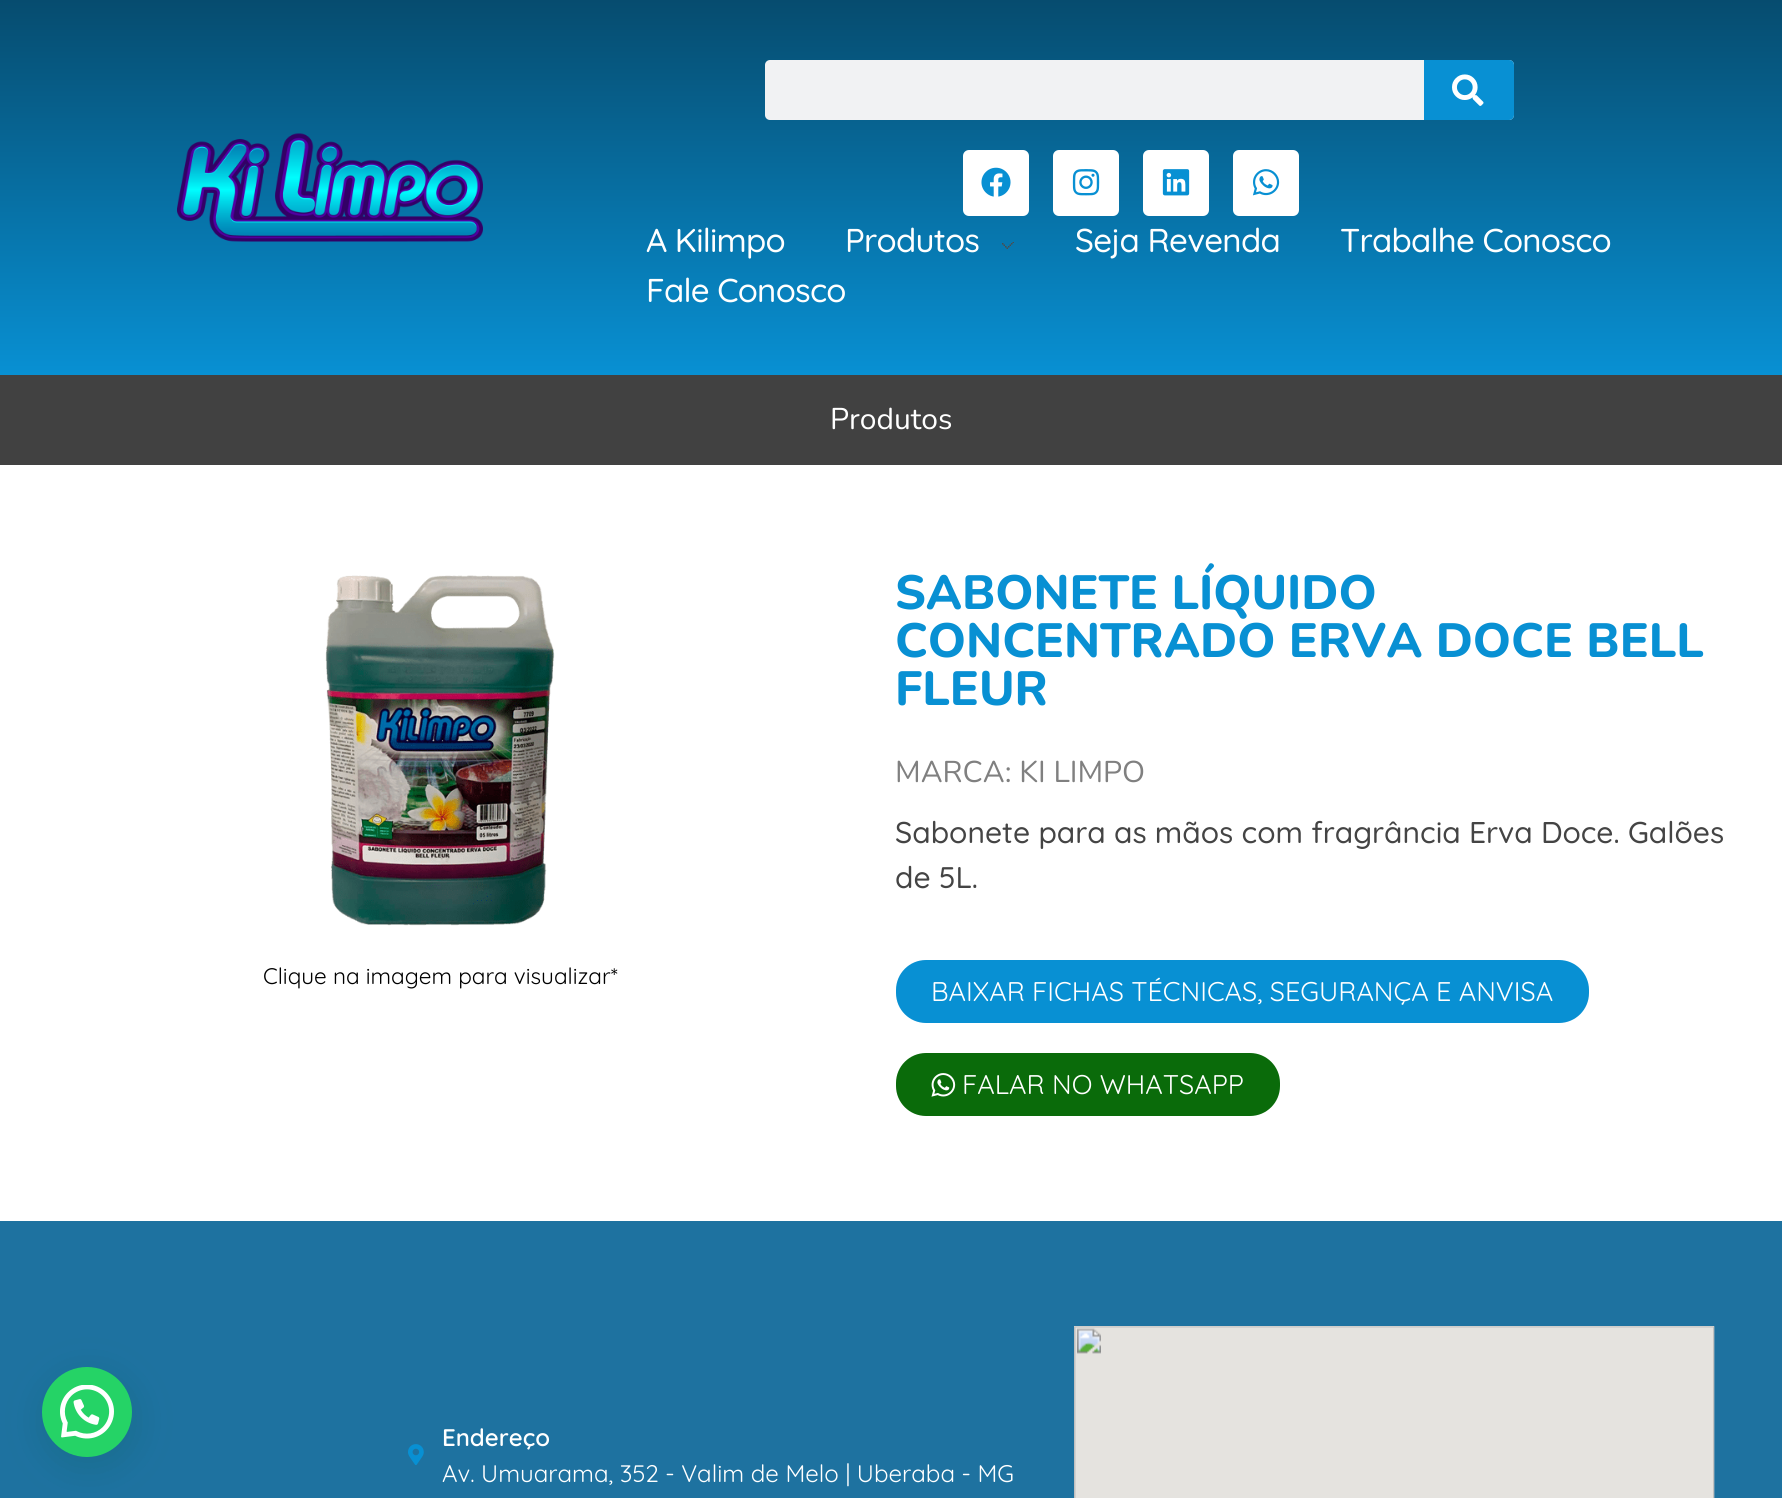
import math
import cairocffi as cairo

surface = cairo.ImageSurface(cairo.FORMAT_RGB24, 1782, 1498)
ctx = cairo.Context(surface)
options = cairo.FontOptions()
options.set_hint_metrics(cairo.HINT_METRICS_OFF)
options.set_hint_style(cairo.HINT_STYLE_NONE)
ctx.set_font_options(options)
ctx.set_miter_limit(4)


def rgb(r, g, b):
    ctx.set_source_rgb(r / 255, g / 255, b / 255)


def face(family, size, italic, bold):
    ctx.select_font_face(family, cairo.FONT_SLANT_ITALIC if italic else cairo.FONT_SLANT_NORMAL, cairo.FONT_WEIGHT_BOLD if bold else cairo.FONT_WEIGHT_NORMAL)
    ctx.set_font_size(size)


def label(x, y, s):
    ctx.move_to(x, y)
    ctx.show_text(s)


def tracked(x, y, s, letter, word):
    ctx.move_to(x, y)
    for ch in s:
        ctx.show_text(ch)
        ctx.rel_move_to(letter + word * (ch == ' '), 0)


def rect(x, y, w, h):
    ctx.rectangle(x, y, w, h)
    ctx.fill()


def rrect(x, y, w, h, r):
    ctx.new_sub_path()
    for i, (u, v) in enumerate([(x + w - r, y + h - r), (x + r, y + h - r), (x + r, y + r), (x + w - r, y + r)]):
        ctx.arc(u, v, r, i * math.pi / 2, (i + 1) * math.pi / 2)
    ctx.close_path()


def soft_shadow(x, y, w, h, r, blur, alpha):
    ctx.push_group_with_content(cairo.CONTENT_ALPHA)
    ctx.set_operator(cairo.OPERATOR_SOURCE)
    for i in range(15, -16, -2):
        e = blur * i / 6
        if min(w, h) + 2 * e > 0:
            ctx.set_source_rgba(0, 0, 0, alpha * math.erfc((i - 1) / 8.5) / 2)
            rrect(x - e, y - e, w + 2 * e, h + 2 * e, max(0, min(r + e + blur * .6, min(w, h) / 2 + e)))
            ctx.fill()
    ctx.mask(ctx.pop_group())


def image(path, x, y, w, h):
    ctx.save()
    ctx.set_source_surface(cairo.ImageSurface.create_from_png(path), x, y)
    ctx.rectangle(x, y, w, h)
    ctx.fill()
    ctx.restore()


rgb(255, 255, 255)
ctx.paint()
rgb(30, 114, 160)
rect(0, 1221, 1782, 277)
rgb(7, 94, 84)
soft_shadow(44, 1376, 90, 90, 45, 18, 0.24)
rgb(37, 211, 102)
ctx.arc(87, 1412, 45, 0, 2 * math.pi)
ctx.fill()
image('image0.png', 60, 1385, 54, 54)
gradient = cairo.LinearGradient(891, 0, 891, 375)
gradient.add_color_stop_rgba(0, 0.024, 0.298, 0.435, 1)
gradient.add_color_stop_rgba(1, 0.031, 0.565, 0.827, 1)
ctx.set_source(gradient)
rect(0, 0, 1782, 375)
image('image1.png', 177, 133, 306, 109)
rgb(241, 242, 243)
rrect(765, 60, 749, 60, 5)
ctx.fill()
rgb(8, 144, 211)
ctx.new_path()
ctx.move_to(1424, 60)
ctx.line_to(1509, 60)
ctx.curve_to(1512, 60, 1514, 62, 1514, 65)
ctx.line_to(1514, 115)
ctx.curve_to(1514, 118, 1512, 120, 1509, 120)
ctx.line_to(1424, 120)
ctx.close_path()
ctx.fill()
image('image2.png', 1452, 74, 32, 32)
rgb(255, 255, 255)
rrect(963, 150, 66, 66, 6)
ctx.fill()
image('image3.png', 981, 167, 30, 30)
rrect(1053, 150, 66, 66, 6)
ctx.fill()
image('image4.png', 1072, 169, 28, 27)
rrect(1143, 150, 66, 66, 6)
ctx.fill()
image('image5.png', 1162, 169, 28, 27)
rrect(1233, 150, 66, 66, 6)
ctx.fill()
image('image6.png', 1252, 169, 28, 27)
face('Quicksand Medium', 33, 0, 0)
tracked(646, 252, 'A Kilimpo', -0.75, 0)
tracked(845, 252, 'Produtos', -0.75, 0)
image('image7.png', 1002, 242, 12, 7)
tracked(1075, 252, 'Seja Revenda', -0.75, 0)
tracked(1340, 252, 'Trabalhe Conosco', -0.75, 0)
tracked(646, 302, 'Fale Conosco', -0.75, 0)
rgb(65, 65, 65)
rect(0, 375, 1782, 90)
face('Nunito', 30, 0, 0)
rgb(255, 255, 255)
label(830, 429, 'Produtos')
image('image8.png', 325, 575, 230, 351)
face('Quicksand', 22.5, 0, 0)
rgb(0, 0, 0)
label(263, 984, 'Clique na imagem para visualizar*')
face('Nunito ExtraBold', 48, 0, 0)
rgb(8, 144, 211)
label(895, 609, 'SABONETE LÍQUIDO')
label(895, 657, 'CONCENTRADO ERVA DOCE BELL')
label(895, 705, 'FLEUR')
face('Nunito', 30, 0, 0)
rgb(128, 128, 128)
label(895, 782, 'MARCA: KI LIMPO')
face('Quicksand Medium', 30, 0, 0)
rgb(68, 68, 68)
label(895, 843, 'Sabonete para as mãos com fragrância Erva Doce. Galões')
label(895, 888, 'de 5L.')
rgb(8, 144, 211)
rrect(896, 960, 693, 63, 30)
ctx.fill()
face('Quicksand', 27, 0, 0)
rgb(255, 255, 255)
label(931, 1001, 'BAIXAR FICHAS TÉCNICAS, SEGURANÇA E ANVISA')
rgb(10, 107, 10)
rrect(896, 1053, 384, 63, 30)
ctx.fill()
image('image9.png', 931, 1073, 25, 24)
rgb(255, 255, 255)
label(962, 1094, 'FALAR NO WHATSAPP')
image('image10.png', 408, 1444, 16, 21)
face('Quicksand SemiBold', 24, 0, 0)
label(442, 1446, 'Endereço')
face('Quicksand', 24, 0, 0)
label(442, 1482, 'Av. Umuarama, 352 - Valim de Melo | Uberaba - MG')
image('image11.png', 1074, 1326, 641, 172)
surface.write_to_png('render.png')
